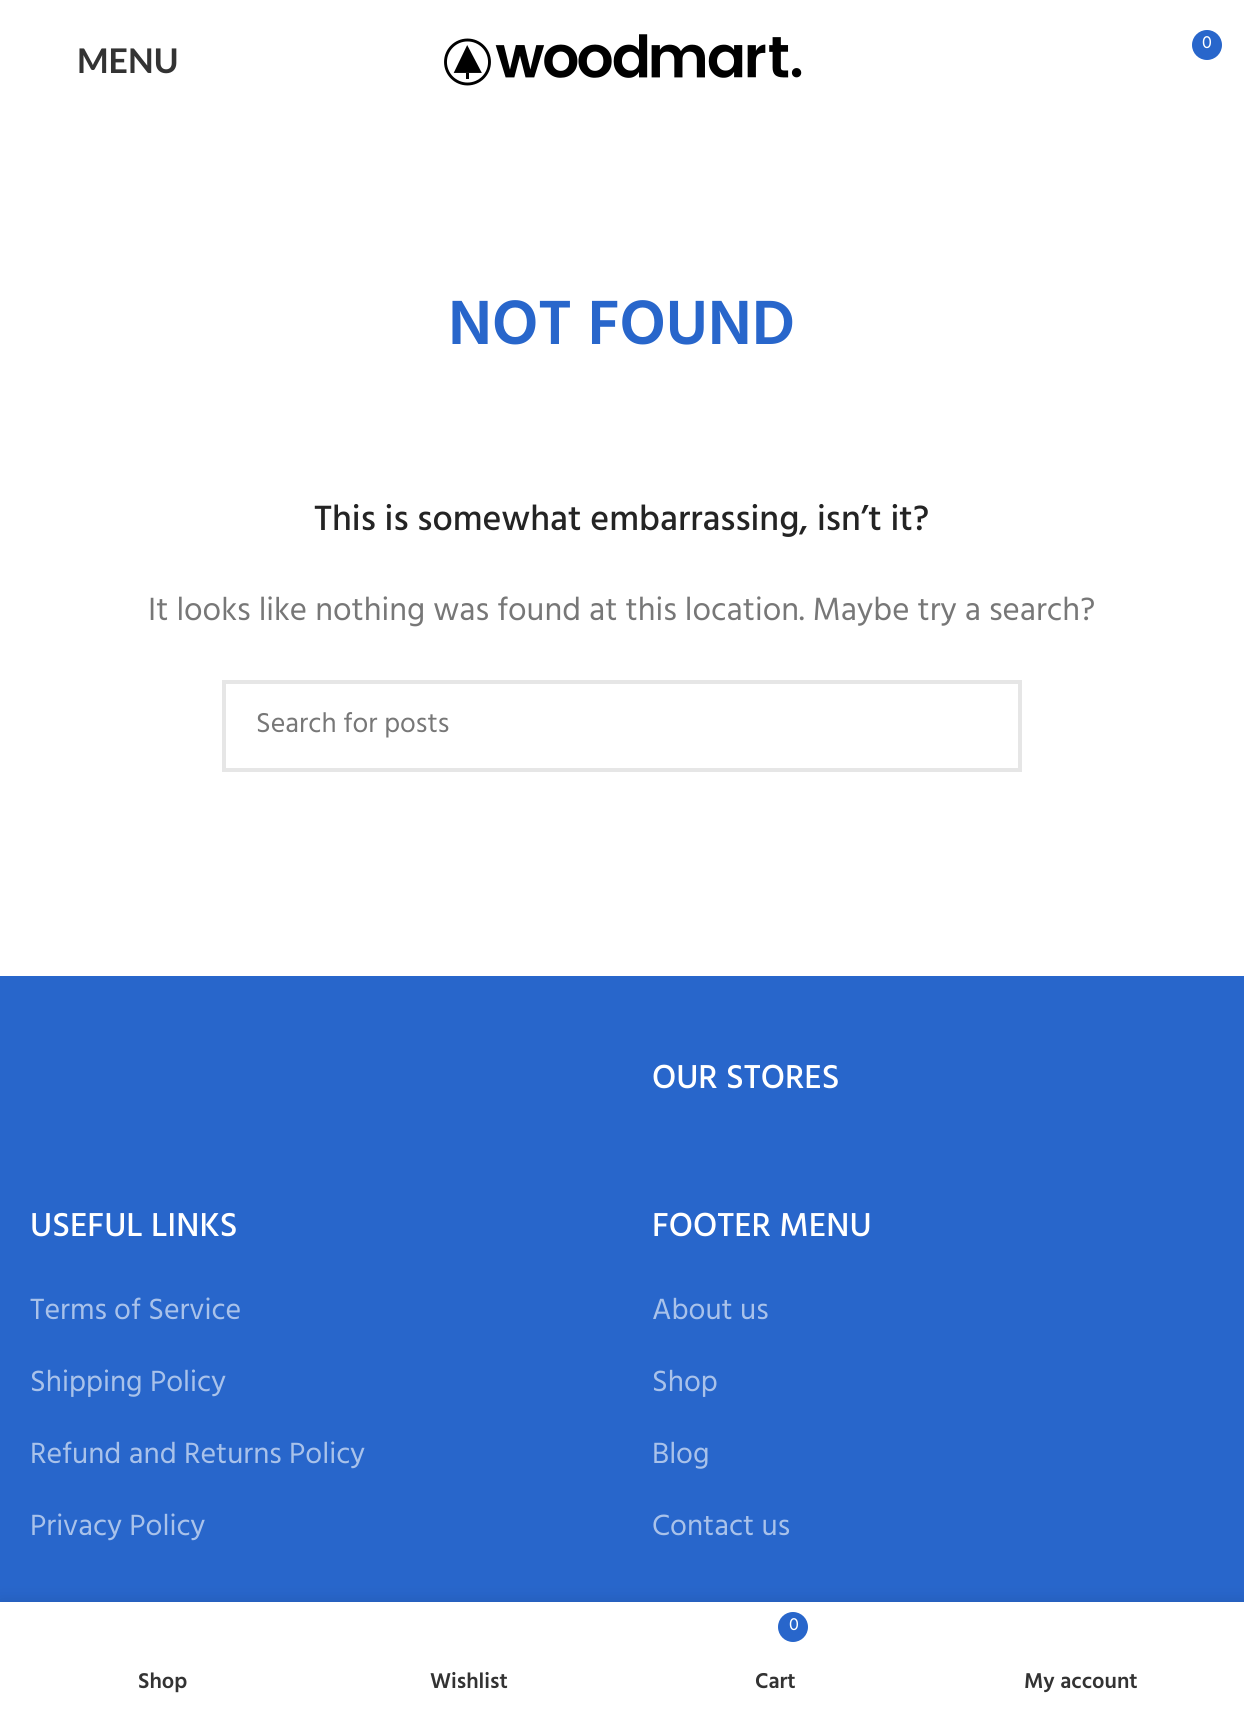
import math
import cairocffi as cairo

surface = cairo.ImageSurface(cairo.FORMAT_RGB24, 1244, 1712)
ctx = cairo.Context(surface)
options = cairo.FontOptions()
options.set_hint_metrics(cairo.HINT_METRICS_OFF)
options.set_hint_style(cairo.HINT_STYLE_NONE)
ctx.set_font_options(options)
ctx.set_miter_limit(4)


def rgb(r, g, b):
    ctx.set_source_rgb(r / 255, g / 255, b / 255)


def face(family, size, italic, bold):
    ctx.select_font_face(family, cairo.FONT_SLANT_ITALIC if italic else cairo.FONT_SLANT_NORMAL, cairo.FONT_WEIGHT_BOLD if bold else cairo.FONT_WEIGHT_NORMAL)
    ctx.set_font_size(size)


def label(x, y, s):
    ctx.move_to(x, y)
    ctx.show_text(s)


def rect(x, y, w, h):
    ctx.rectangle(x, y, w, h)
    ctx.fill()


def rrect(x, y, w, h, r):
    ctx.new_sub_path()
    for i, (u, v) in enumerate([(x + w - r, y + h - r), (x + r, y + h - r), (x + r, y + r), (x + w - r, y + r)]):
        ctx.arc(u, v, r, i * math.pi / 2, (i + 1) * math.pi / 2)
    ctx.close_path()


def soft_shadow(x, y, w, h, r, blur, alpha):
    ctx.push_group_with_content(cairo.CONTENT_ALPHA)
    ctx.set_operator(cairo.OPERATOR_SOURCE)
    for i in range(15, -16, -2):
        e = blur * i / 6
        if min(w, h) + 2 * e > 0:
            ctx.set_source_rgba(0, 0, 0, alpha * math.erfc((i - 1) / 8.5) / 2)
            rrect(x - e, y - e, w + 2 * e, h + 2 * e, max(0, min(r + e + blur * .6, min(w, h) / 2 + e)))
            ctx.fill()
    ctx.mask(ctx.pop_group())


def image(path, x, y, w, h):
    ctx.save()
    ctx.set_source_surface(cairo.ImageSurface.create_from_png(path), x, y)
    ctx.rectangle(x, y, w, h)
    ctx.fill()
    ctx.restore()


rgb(255, 255, 255)
ctx.paint()
image('image0.png', 444, 34, 358, 52)
rgb(40, 102, 203)
ctx.arc(1207, 45, 15, 0, 2 * math.pi)
ctx.fill()
face('Hind', 18, 0, 0)
rgb(255, 255, 255)
label(1202, 48, '0')
face('Lato', 34, 0, 1)
rgb(51, 51, 51)
label(77, 73, 'MENU')
face('Hind SemiBold', 64, 0, 0)
rgb(40, 102, 203)
label(448, 344, 'NOT FOUND')
face('Hind Medium', 36, 0, 0)
rgb(36, 36, 36)
label(314, 530, 'This is somewhat embarrassing, isn’t it?')
face('Hind', 33, 0, 0)
rgb(119, 119, 119)
label(148, 620, 'It looks like nothing was found at this location. Maybe try a search?')
ctx.rectangle(224, 682, 796, 88)
rgb(230, 230, 230)
ctx.set_line_width(4)
ctx.stroke()
face('Hind', 28, 0, 0)
rgb(119, 119, 119)
label(256, 732, 'Search for posts')
rgb(40, 102, 203)
rect(0, 976, 1244, 626)
face('Hind Medium', 34, 0, 0)
rgb(255, 255, 255)
label(652, 1088, 'OUR STORES')
label(30, 1236, 'USEFUL LINKS')
face('Hind', 30, 0, 0)
rgb(169, 194, 234)
label(30, 1319, 'Terms of Service')
label(30, 1391, 'Shipping Policy')
label(30, 1463, 'Refund and Returns Policy')
label(30, 1535, 'Privacy Policy')
face('Hind Medium', 34, 0, 0)
rgb(255, 255, 255)
label(652, 1236, 'FOOTER MENU')
face('Hind', 30, 0, 0)
rgb(169, 194, 234)
label(652, 1319, 'About us')
label(652, 1391, 'Shop')
label(652, 1463, 'Blog')
label(652, 1535, 'Contact us')
rgb(0, 0, 0)
soft_shadow(0, 1602, 1244, 110, 0, 9, 0.12)
rgb(255, 255, 255)
rect(0, 1602, 1244, 110)
face('Hind SemiBold', 22, 0, 0)
rgb(51, 51, 51)
label(138, 1688, 'Shop')
label(430, 1688, 'Wishlist')
rgb(40, 102, 203)
ctx.new_path()
ctx.arc(793, 1627, 15, 0, 2 * math.pi)
ctx.fill()
face('Hind', 18, 0, 0)
rgb(255, 255, 255)
label(789, 1630, '0')
face('Hind SemiBold', 22, 0, 0)
rgb(51, 51, 51)
label(755, 1688, 'Cart')
label(1024, 1688, 'My account')
surface.write_to_png('render.png')
